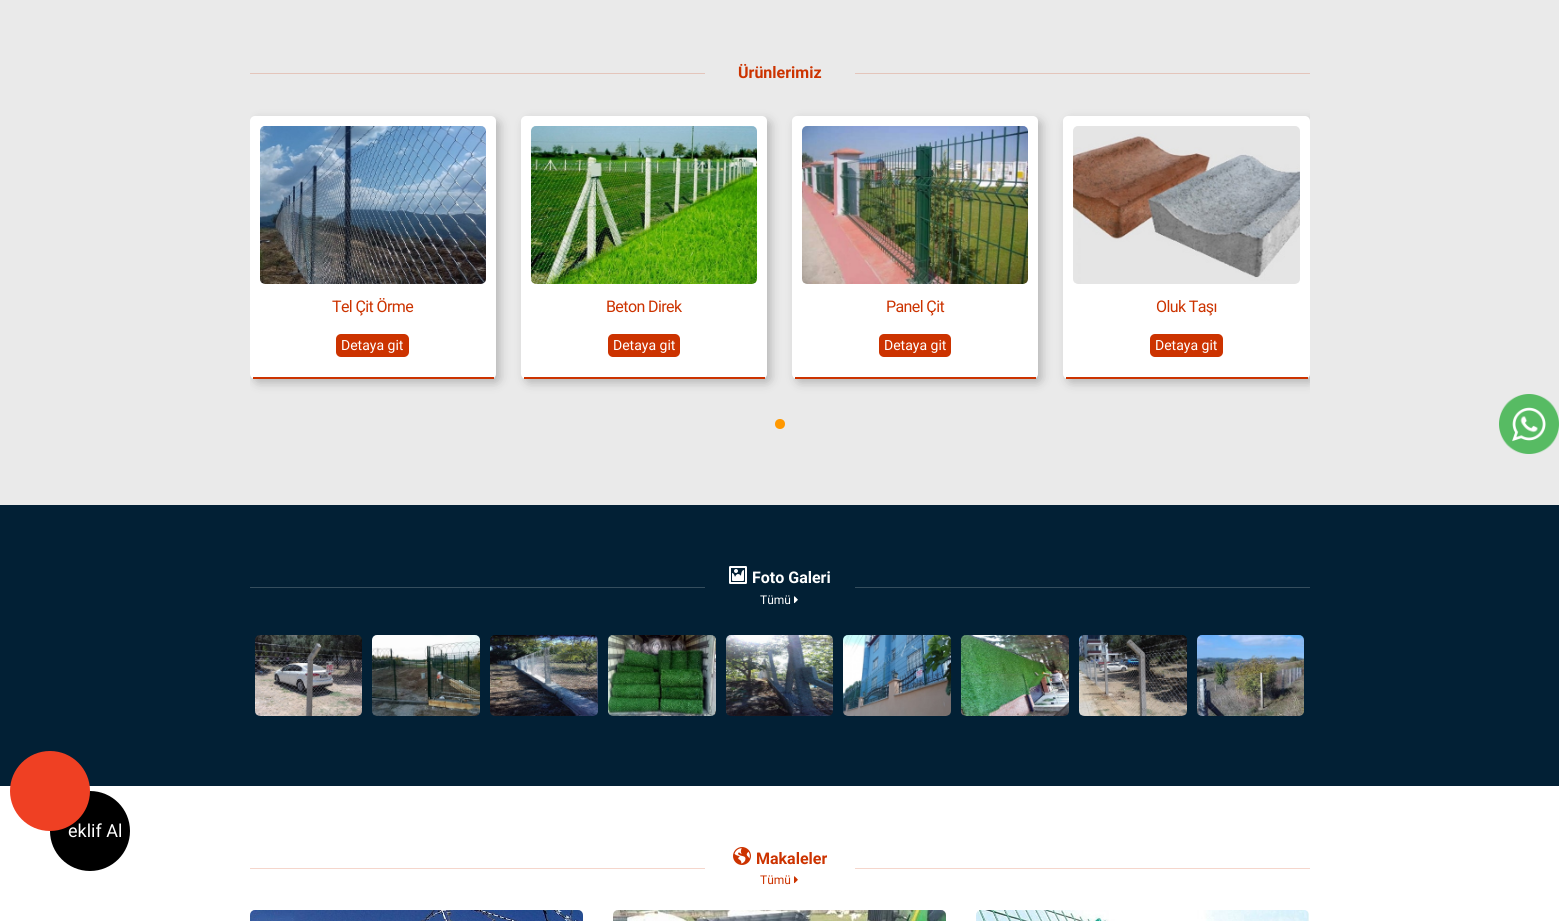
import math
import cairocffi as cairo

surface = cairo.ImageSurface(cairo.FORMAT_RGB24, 1559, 921)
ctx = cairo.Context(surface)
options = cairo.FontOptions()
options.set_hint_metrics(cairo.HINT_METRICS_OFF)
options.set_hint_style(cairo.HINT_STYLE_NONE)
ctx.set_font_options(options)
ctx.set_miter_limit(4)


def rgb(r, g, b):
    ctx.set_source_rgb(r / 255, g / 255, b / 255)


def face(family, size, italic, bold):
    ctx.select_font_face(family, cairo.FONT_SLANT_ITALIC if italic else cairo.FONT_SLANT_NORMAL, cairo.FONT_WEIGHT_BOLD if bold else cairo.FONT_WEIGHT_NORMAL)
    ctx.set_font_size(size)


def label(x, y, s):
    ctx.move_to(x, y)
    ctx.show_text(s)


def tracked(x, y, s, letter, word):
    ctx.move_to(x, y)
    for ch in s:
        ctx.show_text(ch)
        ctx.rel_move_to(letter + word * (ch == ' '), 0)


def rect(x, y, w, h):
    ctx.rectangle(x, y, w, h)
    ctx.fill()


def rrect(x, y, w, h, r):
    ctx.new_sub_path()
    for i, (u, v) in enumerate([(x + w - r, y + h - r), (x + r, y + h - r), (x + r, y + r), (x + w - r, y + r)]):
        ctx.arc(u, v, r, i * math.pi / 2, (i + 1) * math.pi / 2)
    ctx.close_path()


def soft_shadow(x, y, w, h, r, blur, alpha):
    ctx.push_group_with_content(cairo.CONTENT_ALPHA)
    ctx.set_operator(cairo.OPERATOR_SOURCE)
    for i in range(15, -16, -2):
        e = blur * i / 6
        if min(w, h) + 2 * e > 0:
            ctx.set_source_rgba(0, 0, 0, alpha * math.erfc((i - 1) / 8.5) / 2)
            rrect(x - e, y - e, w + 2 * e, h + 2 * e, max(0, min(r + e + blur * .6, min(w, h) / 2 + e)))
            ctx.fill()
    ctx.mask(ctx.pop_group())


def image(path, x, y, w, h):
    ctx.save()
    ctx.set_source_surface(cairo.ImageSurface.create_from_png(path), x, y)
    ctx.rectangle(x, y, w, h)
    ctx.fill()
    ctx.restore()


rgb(234, 234, 234)
ctx.paint()
rgb(228, 197, 187)
rect(250, 73, 1060, 1)
rgb(234, 234, 234)
rect(705, 73, 150, 1)
face('Roboto', 16, 0, 1)
rgb(204, 51, 0)
label(738, 78, 'Ürünlerimiz')
ctx.save()
ctx.rectangle(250, 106, 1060, 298)
ctx.clip()
rgb(0, 0, 0)
soft_shadow(254, 120, 246, 263, 5, 5, 0.22)
ctx.restore()
rgb(255, 255, 255)
rrect(250, 116, 246, 263, 5)
ctx.fill()
rgb(204, 51, 0)
rect(253, 377, 241, 2)
image('image0.png', 260, 126, 226, 158)
face('Roboto', 16, 0, 0)
tracked(332, 312, 'Tel Çit Örme', -0.6, 0)
rrect(336, 334, 73, 23, 5)
ctx.fill()
face('Roboto', 14, 0, 0)
rgb(255, 255, 255)
label(341, 350, 'Detaya git')
rgb(0, 0, 0)
soft_shadow(525, 120, 246, 263, 5, 5, 0.22)
rgb(255, 255, 255)
rrect(521, 116, 246, 263, 5)
ctx.fill()
rgb(204, 51, 0)
rect(524, 377, 241, 2)
image('image1.png', 531, 126, 226, 158)
face('Roboto', 16, 0, 0)
tracked(606, 312, 'Beton Direk', -0.6, 0)
rrect(608, 334, 72, 23, 5)
ctx.fill()
face('Roboto', 14, 0, 0)
rgb(255, 255, 255)
label(613, 350, 'Detaya git')
rgb(0, 0, 0)
soft_shadow(796, 120, 246, 263, 5, 5, 0.22)
rgb(255, 255, 255)
rrect(792, 116, 246, 263, 5)
ctx.fill()
rgb(204, 51, 0)
rect(795, 377, 241, 2)
image('image2.png', 802, 126, 226, 158)
face('Roboto', 16, 0, 0)
tracked(886, 312, 'Panel Çit', -0.6, 0)
rrect(879, 334, 72, 23, 5)
ctx.fill()
face('Roboto', 14, 0, 0)
rgb(255, 255, 255)
label(884, 350, 'Detaya git')
ctx.save()
ctx.rectangle(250, 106, 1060, 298)
ctx.clip()
rgb(0, 0, 0)
soft_shadow(1067, 120, 247, 263, 5, 5, 0.22)
ctx.restore()
rrect(1063, 116, 247, 263, 5)
ctx.fill()
rgb(204, 51, 0)
rect(1066, 377, 242, 2)
image('image3.png', 1073, 126, 227, 158)
face('Roboto', 16, 0, 0)
tracked(1156, 312, 'Oluk Taşı', -0.6, 0)
rrect(1150, 334, 73, 23, 5)
ctx.fill()
face('Roboto', 14, 0, 0)
rgb(255, 255, 255)
label(1155, 350, 'Detaya git')
rgb(255, 152, 0)
ctx.new_path()
ctx.arc(780, 424, 5, 0, 2 * math.pi)
ctx.fill()
rgb(2, 32, 53)
rect(0, 505, 1559, 281)
image('image4.png', 729, 566, 18, 18)
face('Roboto', 16, 0, 1)
rgb(255, 255, 255)
label(752, 583, 'Foto Galeri')
face('Roboto', 12, 0, 0)
label(760, 604, 'Tümü')
image('image5.png', 794, 596, 4, 8)
rgb(53, 77, 93)
rect(250, 587, 1060, 1)
rgb(2, 32, 53)
rect(705, 587, 150, 1)
image('image6.png', 255, 635, 107, 81)
image('image7.png', 372, 635, 108, 81)
image('image8.png', 490, 635, 108, 81)
image('image9.png', 608, 635, 108, 81)
image('image10.png', 726, 635, 107, 81)
image('image11.png', 843, 635, 108, 81)
image('image12.png', 961, 635, 108, 81)
image('image13.png', 1079, 635, 108, 81)
image('image14.png', 1197, 635, 107, 81)
rgb(255, 255, 255)
rect(0, 786, 1559, 135)
image('image15.png', 733, 847, 18, 18)
face('Roboto', 16, 0, 1)
rgb(204, 51, 0)
label(756, 864, 'Makaleler')
face('Roboto', 12, 0, 0)
label(760, 884, 'Tümü')
image('image16.png', 794, 876, 4, 8)
rgb(245, 214, 204)
rect(250, 868, 1060, 1)
rgb(255, 255, 255)
rect(705, 868, 150, 1)
image('image17.png', 250, 910, 333, 11)
image('image18.png', 613, 910, 333, 11)
image('image19.png', 976, 910, 333, 11)
image('image20.png', 1499, 394, 60, 60)
rgb(0, 0, 0)
ctx.arc(90, 831, 40, 0, 2 * math.pi)
ctx.fill()
face('Roboto', 18, 0, 0)
rgb(255, 255, 255)
label(68, 837, 'eklif Al')
rgb(239, 64, 35)
ctx.new_path()
ctx.arc(50, 791, 40, 0, 2 * math.pi)
ctx.fill()
surface.write_to_png('render.png')
